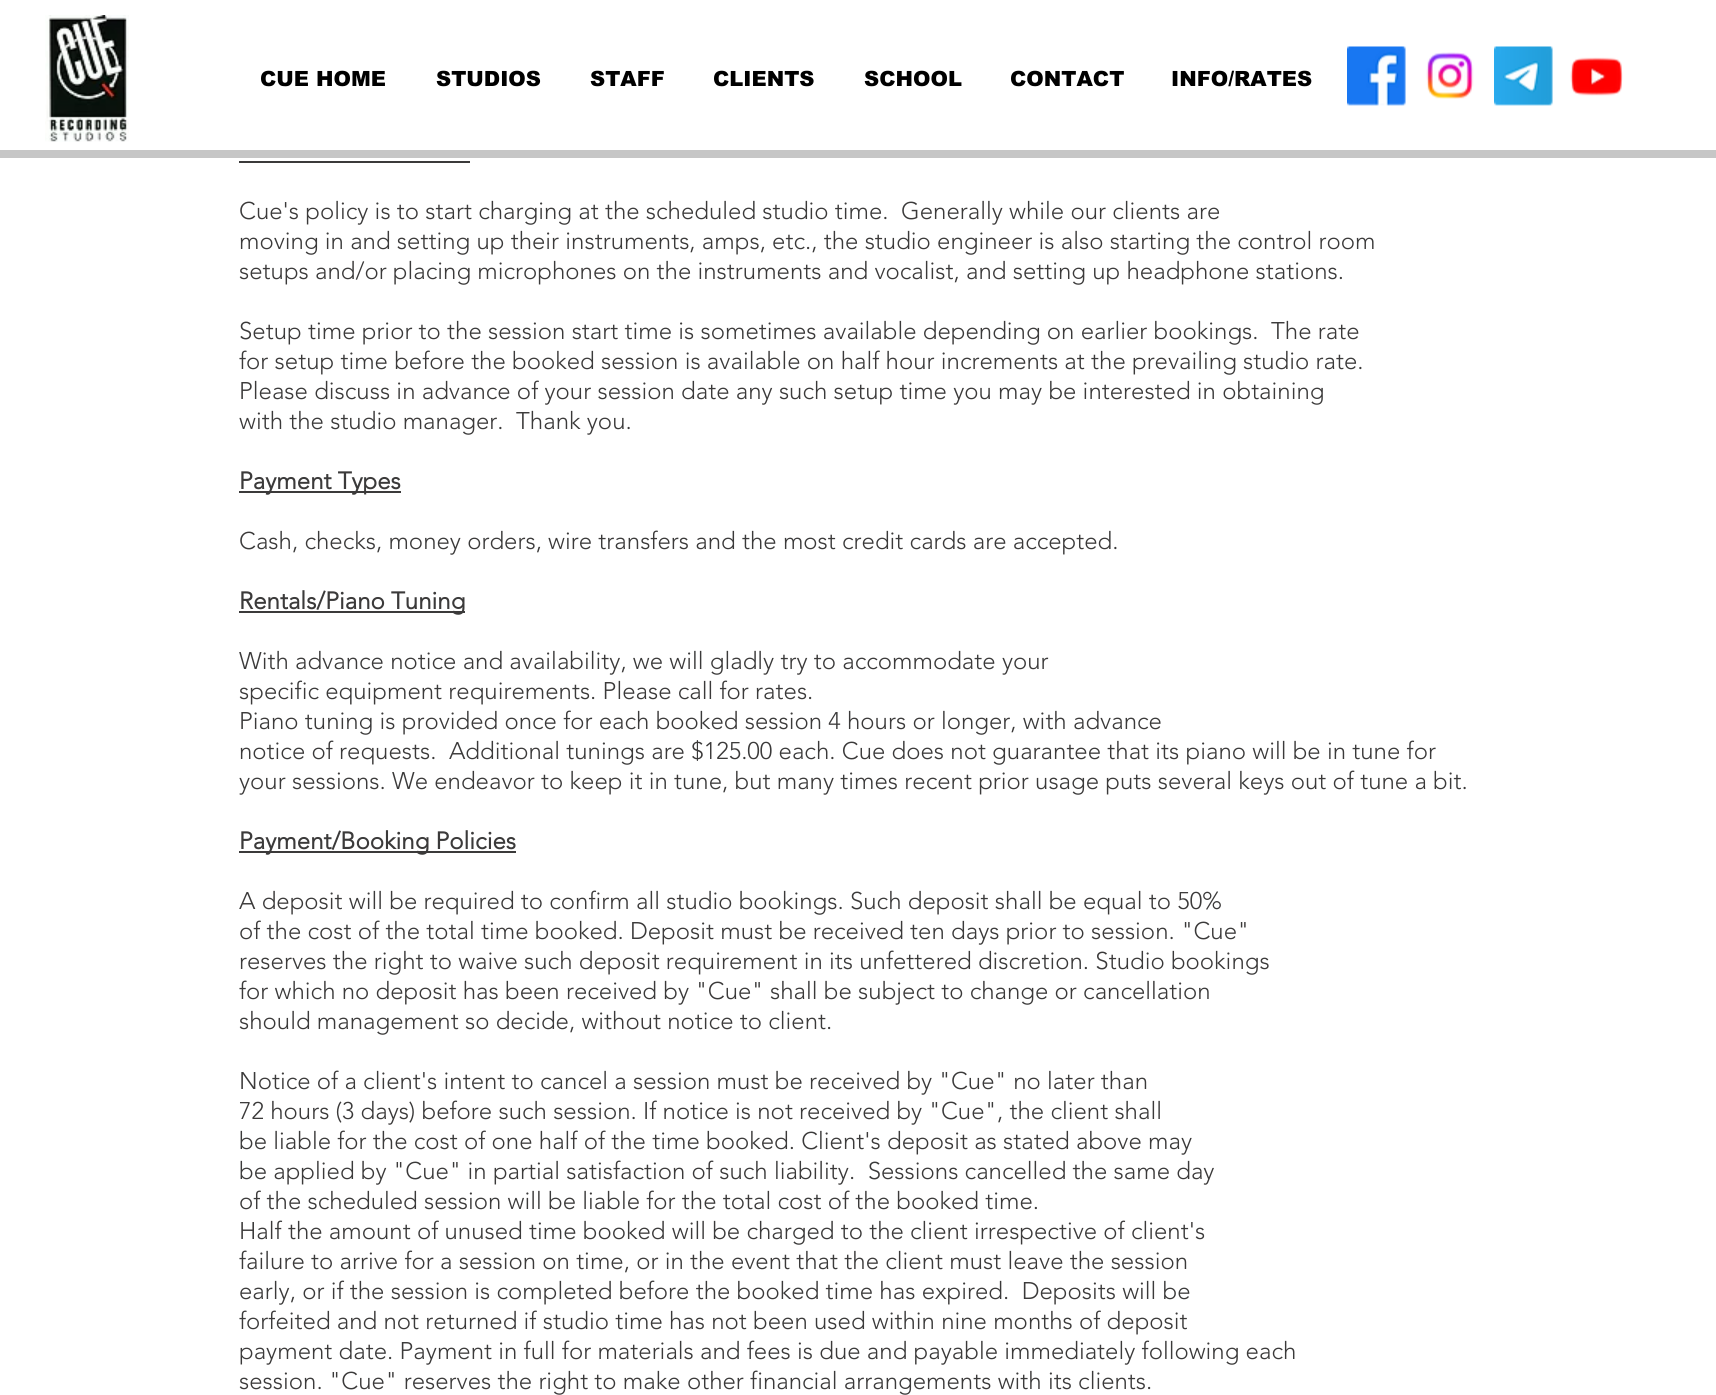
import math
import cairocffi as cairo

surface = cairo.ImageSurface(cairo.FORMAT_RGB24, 1716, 1395)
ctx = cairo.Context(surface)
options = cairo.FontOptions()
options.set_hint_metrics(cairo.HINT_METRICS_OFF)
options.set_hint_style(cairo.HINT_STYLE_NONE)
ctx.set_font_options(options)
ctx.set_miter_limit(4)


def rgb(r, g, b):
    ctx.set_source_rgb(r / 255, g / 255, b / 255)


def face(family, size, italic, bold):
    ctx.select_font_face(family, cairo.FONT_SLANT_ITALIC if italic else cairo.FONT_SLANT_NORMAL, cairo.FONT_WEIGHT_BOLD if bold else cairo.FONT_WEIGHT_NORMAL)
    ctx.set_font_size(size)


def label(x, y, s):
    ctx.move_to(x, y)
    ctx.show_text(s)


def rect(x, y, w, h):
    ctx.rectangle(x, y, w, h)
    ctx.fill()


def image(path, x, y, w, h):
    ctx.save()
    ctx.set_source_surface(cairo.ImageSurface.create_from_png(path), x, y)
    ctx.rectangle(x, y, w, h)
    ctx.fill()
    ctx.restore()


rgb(255, 255, 255)
ctx.paint()
image('image0.png', 45, 15, 84, 127)
face('arial Black', 21, 0, 0)
rgb(0, 0, 0)
label(260, 86, 'CUE HOME')
label(436, 86, 'STUDIOS')
label(590, 86, 'STAFF')
label(713, 86, 'CLIENTS')
label(864, 86, 'SCHOOL')
label(1010, 86, 'CONTACT')
label(1171, 86, 'INFO/RATES')
image('image1.png', 1347, 46, 59, 60)
image('image2.png', 1426, 52, 48, 47)
image('image3.png', 1494, 46, 59, 60)
image('image4.png', 1570, 57, 53, 39)
rgb(198, 198, 198)
rect(0, 150, 1716, 8)
rgb(59, 58, 58)
rect(239, 161, 231, 2)
face('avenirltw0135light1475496 Light', 24, 0, 0)
label(239, 219, 'Cue\'s policy is to start charging at the scheduled studio time.  Generally while our clients are')
label(239, 249, 'moving in and setting up their instruments, amps, etc., the studio engineer is also starting the control room')
label(239, 279, 'setups and/or placing microphones on the instruments and vocalist, and setting up headphone stations.')
label(239, 339, 'Setup time prior to the session start time is sometimes available depending on earlier bookings.  The rate')
label(239, 369, 'for setup time before the booked session is available on half hour increments at the prevailing studio rate.')
label(239, 399, 'Please discuss in advance of your session date any such setup time you may be interested in obtaining')
label(239, 429, 'with the studio manager.  Thank you.')
rect(239, 491, 162, 2)
face('avenirltw0135light1475496', 24, 0, 1)
label(239, 489, 'Payment Types')
face('avenirltw0135light1475496 Light', 24, 0, 0)
label(239, 549, 'Cash, checks, money orders, wire transfers and the most credit cards are accepted.')
rect(239, 611, 226, 2)
face('avenirltw0135light1475496', 24, 0, 1)
label(239, 609, 'Rentals/Piano Tuning')
face('avenirltw0135light1475496 Light', 24, 0, 0)
label(239, 669, 'With advance notice and availability, we will gladly try to accommodate your')
label(239, 699, 'specific equipment requirements. Please call for rates.')
label(239, 729, 'Piano tuning is provided once for each booked session 4 hours or longer, with advance')
label(239, 759, 'notice of requests.  Additional tunings are $125.00 each. Cue does not guarantee that its piano will be in tune for')
label(239, 789, 'your sessions. We endeavor to keep it in tune, but many times recent prior usage puts several keys out of tune a bit.')
rect(239, 851, 277, 2)
face('avenirltw0135light1475496', 24, 0, 1)
label(239, 849, 'Payment/Booking Policies')
face('avenirltw0135light1475496 Light', 24, 0, 0)
label(239, 909, 'A deposit will be required to confirm all studio bookings. Such deposit shall be equal to 50%')
label(239, 939, 'of the cost of the total time booked. Deposit must be received ten days prior to session. "Cue"')
label(239, 969, 'reserves the right to waive such deposit requirement in its unfettered discretion. Studio bookings')
label(239, 999, 'for which no deposit has been received by "Cue" shall be subject to change or cancellation')
label(239, 1029, 'should management so decide, without notice to client.')
label(239, 1089, 'Notice of a client\'s intent to cancel a session must be received by "Cue" no later than')
label(239, 1119, '72 hours (3 days) before such session. If notice is not received by "Cue", the client shall')
label(239, 1149, 'be liable for the cost of one half of the time booked. Client\'s deposit as stated above may')
label(239, 1179, 'be applied by "Cue" in partial satisfaction of such liability.  Sessions cancelled the same day')
label(239, 1209, 'of the scheduled session will be liable for the total cost of the booked time.')
label(239, 1239, 'Half the amount of unused time booked will be charged to the client irrespective of client\'s')
label(239, 1269, 'failure to arrive for a session on time, or in the event that the client must leave the session')
label(239, 1299, 'early, or if the session is completed before the booked time has expired.  Deposits will be')
label(239, 1329, 'forfeited and not returned if studio time has not been used within nine months of deposit')
label(239, 1359, 'payment date. Payment in full for materials and fees is due and payable immediately following each')
label(239, 1389, 'session. "Cue" reserves the right to make other financial arrangements with its clients.')
surface.write_to_png('render.png')
